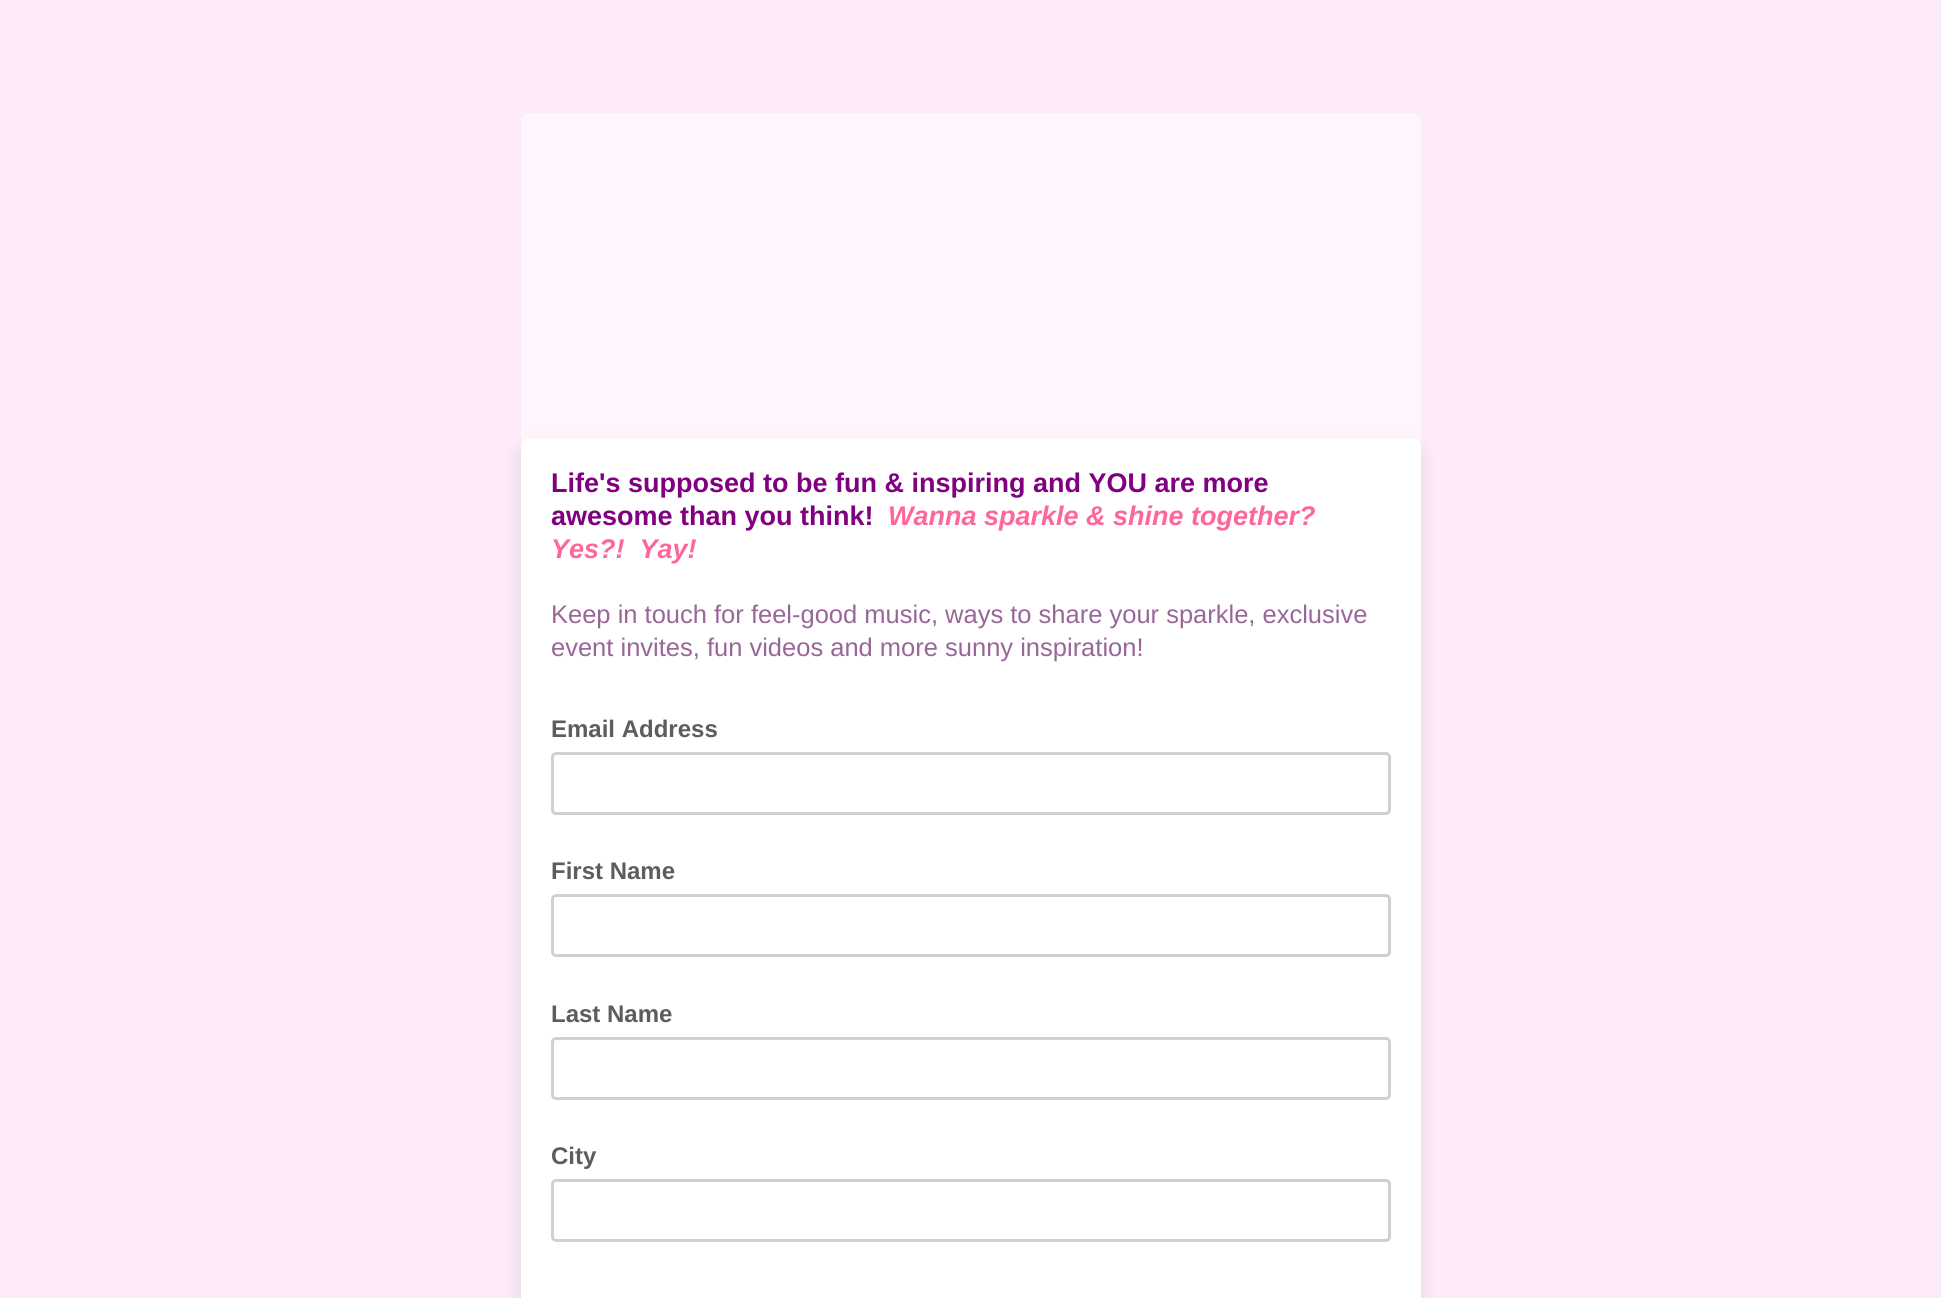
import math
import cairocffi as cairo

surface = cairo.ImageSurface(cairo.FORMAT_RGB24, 1941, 1298)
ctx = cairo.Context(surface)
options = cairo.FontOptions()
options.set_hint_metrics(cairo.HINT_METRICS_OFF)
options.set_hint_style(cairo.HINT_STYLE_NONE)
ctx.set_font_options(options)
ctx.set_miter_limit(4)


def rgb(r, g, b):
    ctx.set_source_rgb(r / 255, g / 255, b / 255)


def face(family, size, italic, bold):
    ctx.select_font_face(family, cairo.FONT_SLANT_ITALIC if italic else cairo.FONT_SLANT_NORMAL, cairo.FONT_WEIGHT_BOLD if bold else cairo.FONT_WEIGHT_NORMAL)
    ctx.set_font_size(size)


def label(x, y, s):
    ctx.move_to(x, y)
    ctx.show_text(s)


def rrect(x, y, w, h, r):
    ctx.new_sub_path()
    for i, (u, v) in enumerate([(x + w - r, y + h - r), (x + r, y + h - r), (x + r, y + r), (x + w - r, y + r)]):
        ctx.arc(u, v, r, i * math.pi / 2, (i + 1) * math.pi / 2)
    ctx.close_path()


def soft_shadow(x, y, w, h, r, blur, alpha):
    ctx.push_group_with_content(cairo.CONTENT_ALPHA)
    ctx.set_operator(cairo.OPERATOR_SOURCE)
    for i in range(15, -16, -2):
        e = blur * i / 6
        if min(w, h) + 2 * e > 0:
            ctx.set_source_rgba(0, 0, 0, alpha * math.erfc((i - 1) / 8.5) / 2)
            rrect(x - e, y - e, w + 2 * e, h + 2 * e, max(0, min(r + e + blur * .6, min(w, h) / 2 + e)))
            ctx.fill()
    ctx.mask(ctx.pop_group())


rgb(253, 235, 250)
ctx.paint()
rgb(255, 245, 253)
rrect(521, 113, 900, 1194, 9)
ctx.fill()
rgb(13, 18, 22)
soft_shadow(521, 447, 900, 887, 9, 9, 0.12)
rgb(255, 255, 255)
rrect(521, 438, 900, 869, 9)
ctx.fill()
face('Liberation Sans', 27, 0, 1)
rgb(128, 0, 128)
label(551, 492, 'Life\'s supposed to be fun & inspiring and YOU are more')
label(551, 525, 'awesome than you think!')
face('Liberation Sans', 27, 1, 1)
rgb(255, 102, 153)
label(888, 525, 'Wanna sparkle & shine together?')
label(551, 558, 'Yes?!  Yay!')
face('Liberation Sans', 25.5, 0, 0)
rgb(153, 102, 153)
label(551, 623, 'Keep in touch for feel-good music, ways to share your sparkle, exclusive')
label(551, 656, 'event invites, fun videos and more sunny inspiration!')
face('Liberation Sans', 24, 0, 1)
rgb(93, 93, 93)
label(551, 737, 'Email Address')
rrect(552.5, 753.5, 837, 60, 3.5)
rgb(208, 208, 208)
ctx.set_line_width(3)
ctx.stroke()
rgb(93, 93, 93)
label(551, 879, 'First Name')
rrect(552.5, 895.5, 837, 60, 3.5)
rgb(208, 208, 208)
ctx.stroke()
rgb(93, 93, 93)
label(551, 1022, 'Last Name')
rrect(552.5, 1038.5, 837, 60, 3.5)
rgb(208, 208, 208)
ctx.stroke()
rgb(93, 93, 93)
label(551, 1164, 'City')
rrect(552.5, 1180.5, 837, 60, 3.5)
rgb(208, 208, 208)
ctx.stroke()
surface.write_to_png('render.png')
